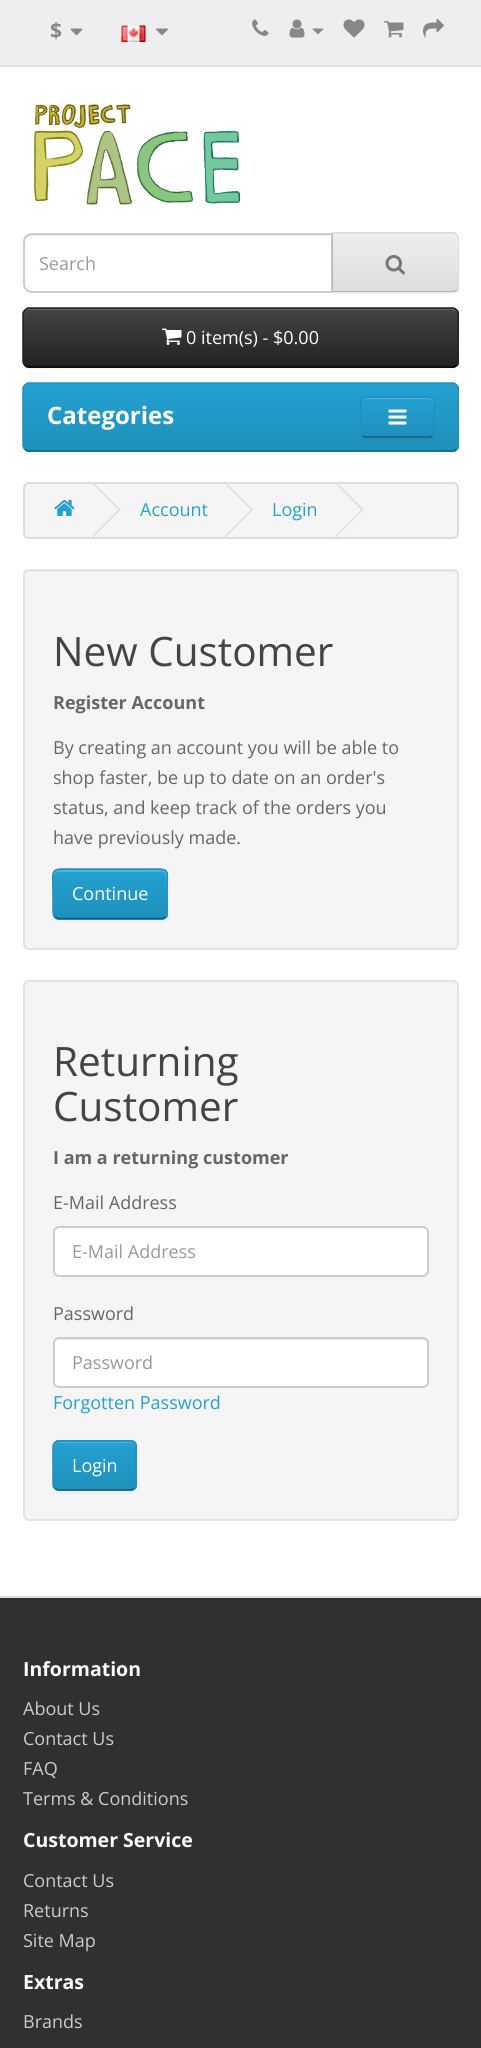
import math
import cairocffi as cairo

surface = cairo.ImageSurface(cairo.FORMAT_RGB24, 481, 2048)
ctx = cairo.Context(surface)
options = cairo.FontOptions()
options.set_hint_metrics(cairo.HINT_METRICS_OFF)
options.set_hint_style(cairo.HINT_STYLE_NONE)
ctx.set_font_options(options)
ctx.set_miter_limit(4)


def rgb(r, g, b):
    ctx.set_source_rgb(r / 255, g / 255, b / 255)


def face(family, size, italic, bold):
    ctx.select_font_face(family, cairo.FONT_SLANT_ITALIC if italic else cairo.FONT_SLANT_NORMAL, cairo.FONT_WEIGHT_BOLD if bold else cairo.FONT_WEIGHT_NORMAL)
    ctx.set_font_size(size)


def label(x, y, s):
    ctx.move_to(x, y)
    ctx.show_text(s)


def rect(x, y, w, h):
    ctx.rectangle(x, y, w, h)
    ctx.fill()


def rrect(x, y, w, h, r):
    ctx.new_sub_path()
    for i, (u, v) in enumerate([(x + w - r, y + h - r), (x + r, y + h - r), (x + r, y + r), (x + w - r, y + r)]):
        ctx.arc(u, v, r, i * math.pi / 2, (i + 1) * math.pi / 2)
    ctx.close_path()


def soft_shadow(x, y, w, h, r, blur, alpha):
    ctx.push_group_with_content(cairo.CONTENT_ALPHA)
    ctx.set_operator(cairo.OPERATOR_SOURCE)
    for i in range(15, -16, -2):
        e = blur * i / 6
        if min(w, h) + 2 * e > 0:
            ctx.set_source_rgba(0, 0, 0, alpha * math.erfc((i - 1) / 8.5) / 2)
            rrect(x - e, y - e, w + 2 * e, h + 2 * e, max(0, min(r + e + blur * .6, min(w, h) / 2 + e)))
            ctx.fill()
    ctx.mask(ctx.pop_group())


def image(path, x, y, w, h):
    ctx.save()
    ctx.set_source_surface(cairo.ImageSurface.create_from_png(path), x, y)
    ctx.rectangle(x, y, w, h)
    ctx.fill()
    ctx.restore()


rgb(255, 255, 255)
ctx.paint()
rgb(238, 238, 238)
rect(0, 0, 481, 65)
rgb(226, 226, 226)
rect(0, 65, 481, 2)
face('Open Sans', 21, 0, 1)
rgb(136, 136, 136)
label(50, 38, '$')
image('image0.png', 70, 28, 13, 8)
image('image1.png', 121, 25, 25, 17)
image('image2.png', 156, 28, 12, 8)
image('image3.png', 252, 19, 17, 17)
image('image4.png', 289, 19, 16, 19)
ctx.new_path()
ctx.move_to(312, 28.5)
ctx.line_to(324, 28.5)
ctx.line_to(318, 34.5)
ctx.close_path()
ctx.fill()
image('image5.png', 343, 19, 22, 19)
image('image6.png', 384, 21, 20, 17)
image('image7.png', 423, 18, 21, 20)
image('image8.png', 33, 104, 208, 101)
rgb(236, 236, 236)
ctx.new_path()
ctx.move_to(32, 236)
ctx.line_to(332, 236)
ctx.line_to(332, 234)
ctx.line_to(32, 234)
ctx.curve_to(27, 234, 24, 238, 24, 243)
ctx.curve_to(24, 239, 27, 236, 32, 236)
ctx.close_path()
ctx.fill()
ctx.new_path()
ctx.move_to(32, 234)
ctx.line_to(332, 234)
ctx.line_to(332, 292)
ctx.line_to(32, 292)
ctx.curve_to(27.5, 292, 24, 288.5, 24, 284)
ctx.line_to(24, 242)
ctx.curve_to(24, 237.5, 27.5, 234, 32, 234)
ctx.close_path()
rgb(204, 204, 204)
ctx.stroke()
face('Open Sans', 18, 0, 0)
rgb(153, 153, 153)
label(39, 270, 'Search')
rgb(0, 0, 0)
soft_shadow(332, 234, 127, 60, 6, 1.5, 0.05)
rgb(231, 231, 231)
ctx.new_path()
ctx.move_to(332, 233)
ctx.line_to(453, 233)
ctx.curve_to(456.5, 233, 459, 235.5, 459, 239)
ctx.line_to(459, 287)
ctx.curve_to(459, 290.5, 456.5, 293, 453, 293)
ctx.line_to(332, 293)
ctx.close_path()
ctx.fill()
ctx.save()
ctx.new_path()
ctx.move_to(332, 233)
ctx.line_to(453, 233)
ctx.curve_to(456.5, 233, 459, 235.5, 459, 239)
ctx.line_to(459, 287)
ctx.curve_to(459, 290.5, 456.5, 293, 453, 293)
ctx.line_to(332, 293)
ctx.close_path()
ctx.clip()
gradient = cairo.LinearGradient(395, 234, 395, 291)
gradient.add_color_stop_rgba(0, 0.933, 0.933, 0.933, 1)
gradient.add_color_stop_rgba(1, 0.867, 0.867, 0.867, 1)
ctx.set_source(gradient)
rect(333, 234, 126, 57)
ctx.restore()
rgb(241, 241, 241)
ctx.new_path()
ctx.move_to(333, 236)
ctx.line_to(453, 236)
ctx.curve_to(455, 236, 458, 238, 458, 240)
ctx.line_to(458, 239)
ctx.curve_to(458, 236, 456, 234, 453, 234)
ctx.line_to(333, 234)
ctx.close_path()
ctx.fill()
rgb(221, 221, 221)
ctx.new_path()
ctx.move_to(333, 234)
ctx.line_to(332, 232)
ctx.line_to(455, 232)
ctx.line_to(457, 234)
ctx.line_to(456, 235)
ctx.line_to(453, 234)
ctx.close_path()
ctx.fill()
ctx.new_path()
ctx.move_to(459, 286)
ctx.line_to(459, 238)
ctx.curve_to(459, 237, 458, 235, 457, 234)
ctx.line_to(456, 235)
ctx.line_to(458, 238)
ctx.line_to(458, 287)
ctx.line_to(456, 290)
ctx.line_to(457, 291)
ctx.curve_to(458, 290, 459, 288, 459, 286)
ctx.close_path()
ctx.fill()
rgb(179, 179, 179)
ctx.new_path()
ctx.move_to(457, 291)
ctx.line_to(454, 292)
ctx.line_to(332, 292)
ctx.line_to(333, 291)
ctx.line_to(453, 291)
ctx.line_to(456, 290)
ctx.close_path()
ctx.fill()
rgb(183, 183, 183)
ctx.new_path()
ctx.move_to(333, 234)
ctx.line_to(332, 233)
ctx.line_to(332, 292)
ctx.line_to(333, 291)
ctx.close_path()
ctx.fill()
image('image9.png', 385, 255, 20, 20)
rgb(0, 0, 0)
soft_shadow(23, 309, 436, 60, 6, 1.5, 0.05)
rgb(54, 54, 54)
rrect(23, 308, 436, 60, 6)
ctx.fill()
ctx.save()
rrect(23, 308, 436, 60, 6)
ctx.clip()
gradient = cairo.LinearGradient(241, 309, 241, 366)
gradient.add_color_stop_rgba(0, 0.267, 0.267, 0.267, 1)
gradient.add_color_stop_rgba(1, 0.133, 0.133, 0.133, 1)
ctx.set_source(gradient)
rect(23, 309, 436, 57)
ctx.restore()
rgb(105, 105, 105)
ctx.new_path()
ctx.move_to(28, 310)
ctx.line_to(453, 310)
ctx.curve_to(455, 310, 458, 313, 458, 315)
ctx.curve_to(458, 312, 456, 309, 453, 309)
ctx.line_to(29, 309)
ctx.curve_to(26, 309, 24, 312, 24, 315)
ctx.curve_to(24, 313, 26, 310, 28, 310)
ctx.close_path()
ctx.fill()
ctx.new_path()
ctx.move_to(456.5, 365)
ctx.curve_to(455.5, 366, 454.5, 367, 453, 367)
ctx.line_to(28.5, 367)
ctx.curve_to(27, 367, 26, 366, 25, 365)
rgb(0, 0, 0)
ctx.set_line_width(1.5)
ctx.stroke()
ctx.new_path()
ctx.move_to(25, 365)
ctx.curve_to(24, 364, 23, 363, 23, 361.5)
ctx.line_to(23, 313.5)
ctx.curve_to(23, 312, 24, 311, 25, 310)
ctx.curve_to(26, 309, 27, 308, 28.5, 308)
ctx.line_to(453, 308)
ctx.curve_to(454.5, 308, 455.5, 309, 456.5, 310)
ctx.curve_to(457.5, 311, 458, 312, 458, 313.5)
ctx.line_to(458, 361.5)
ctx.curve_to(458, 363, 457.5, 364, 456.5, 365)
rgb(34, 34, 34)
ctx.stroke()
image('image10.png', 162, 328, 20, 17)
rgb(255, 255, 255)
label(186, 344, '0 item(s) - $0.00')
rgb(34, 154, 200)
rrect(23, 383, 436, 69, 6)
ctx.fill()
ctx.save()
rrect(23, 383, 436, 69, 6)
ctx.clip()
gradient = cairo.LinearGradient(241, 384, 241, 450)
gradient.add_color_stop_rgba(0, 0.137, 0.631, 0.82, 1)
gradient.add_color_stop_rgba(1, 0.122, 0.565, 0.733, 1)
ctx.set_source(gradient)
rect(23, 384, 436, 66)
ctx.restore()
ctx.new_path()
ctx.move_to(456.5, 449)
ctx.curve_to(455.5, 450, 454.5, 451, 453, 451)
ctx.line_to(28.5, 451)
ctx.curve_to(27, 451, 26, 450, 25, 449)
rgb(20, 94, 122)
ctx.stroke()
ctx.new_path()
ctx.move_to(25, 449)
ctx.curve_to(24, 448, 23, 447, 23, 445.5)
ctx.line_to(23, 388.5)
ctx.curve_to(23, 387, 24, 386, 25, 385)
ctx.curve_to(26, 384, 27, 383, 28.5, 383)
ctx.line_to(453, 383)
ctx.curve_to(454.5, 383, 455.5, 384, 456.5, 385)
ctx.curve_to(457.5, 386, 458, 387, 458, 388.5)
ctx.line_to(458, 445.5)
ctx.curve_to(458, 447, 457.5, 448, 456.5, 449)
rgb(31, 144, 187)
ctx.stroke()
face('Open Sans', 24, 0, 1)
rgb(255, 255, 255)
label(47, 424, 'Categories')
rgb(0, 0, 0)
soft_shadow(360, 398, 75, 42, 6, 1.5, 0.05)
rgb(34, 154, 200)
rrect(360, 396, 75, 42, 6)
ctx.fill()
ctx.save()
rrect(360, 396, 75, 42, 6)
ctx.clip()
gradient = cairo.LinearGradient(398, 398, 398, 437)
gradient.add_color_stop_rgba(0, 0.137, 0.631, 0.82, 1)
gradient.add_color_stop_rgba(1, 0.122, 0.565, 0.733, 1)
ctx.set_source(gradient)
rect(360, 398, 75, 39)
ctx.restore()
rgb(79, 180, 218)
ctx.new_path()
ctx.move_to(366, 399)
ctx.line_to(429, 399)
ctx.curve_to(431, 399, 434, 401, 434, 404)
ctx.curve_to(434, 396, 424, 398, 419, 398)
ctx.line_to(377, 398)
ctx.curve_to(372, 398, 362, 396, 362, 404)
ctx.curve_to(362, 401, 364, 399, 366, 399)
ctx.close_path()
ctx.fill()
ctx.new_path()
ctx.move_to(432.5, 435.5)
ctx.curve_to(431.5, 436.5, 430.5, 437, 429, 437)
ctx.line_to(366, 437)
ctx.curve_to(364.5, 437, 363.5, 436.5, 362.5, 435.5)
rgb(20, 94, 122)
ctx.stroke()
ctx.new_path()
ctx.move_to(362.5, 435.5)
ctx.curve_to(360, 433.5, 361, 430, 361, 427)
ctx.line_to(361, 417)
ctx.curve_to(361, 396.5, 357, 397, 376.5, 397)
ctx.line_to(418.5, 397)
ctx.curve_to(438, 397, 434, 396.5, 434, 417)
ctx.line_to(434, 427)
ctx.curve_to(434, 430, 435, 433.5, 432.5, 435.5)
rgb(31, 144, 187)
ctx.stroke()
image('image11.png', 388, 409, 19, 16)
rgb(245, 245, 245)
rrect(24, 483, 434, 55, 5)
ctx.fill_preserve()
rgb(221, 221, 221)
ctx.set_line_width(2)
ctx.stroke()
image('image12.png', 54, 499, 21, 17)
ctx.new_path()
ctx.move_to(92, 483)
ctx.line_to(93, 482)
ctx.line_to(120.5, 509.5)
ctx.line_to(119.5, 511)
ctx.close_path()
ctx.fill()
ctx.new_path()
ctx.move_to(92, 536.5)
ctx.line_to(119.5, 508.5)
ctx.line_to(120.5, 509.5)
ctx.line_to(93, 537.5)
ctx.close_path()
ctx.fill()
face('Open Sans', 18, 0, 0)
rgb(35, 161, 209)
label(140, 516, 'Account')
rgb(221, 221, 221)
ctx.new_path()
ctx.move_to(224.5, 483)
ctx.line_to(225.5, 482)
ctx.line_to(253, 509.5)
ctx.line_to(252, 511)
ctx.close_path()
ctx.fill()
ctx.new_path()
ctx.move_to(224.5, 536.5)
ctx.line_to(252, 508.5)
ctx.line_to(253, 509.5)
ctx.line_to(225.5, 537.5)
ctx.close_path()
ctx.fill()
rgb(35, 161, 209)
label(272, 516, 'Login')
rgb(221, 221, 221)
ctx.new_path()
ctx.move_to(335, 483)
ctx.line_to(336, 482)
ctx.line_to(363.5, 509.5)
ctx.line_to(362.5, 511)
ctx.close_path()
ctx.fill()
ctx.new_path()
ctx.move_to(335, 536.5)
ctx.line_to(362.5, 508.5)
ctx.line_to(363.5, 509.5)
ctx.line_to(336, 537.5)
ctx.close_path()
ctx.fill()
rgb(245, 245, 245)
rrect(23, 569, 436, 381, 6)
ctx.fill()
rgb(233, 233, 233)
ctx.new_path()
ctx.move_to(28, 572)
ctx.line_to(453, 572)
ctx.curve_to(455, 572, 458, 574, 458, 576)
ctx.curve_to(458, 573, 456, 570, 453, 570)
ctx.line_to(29, 570)
ctx.curve_to(26, 570, 24, 573, 24, 576)
ctx.curve_to(24, 574, 26, 572, 28, 572)
ctx.close_path()
ctx.fill()
rrect(24, 570, 434, 379, 5)
rgb(227, 227, 227)
ctx.stroke()
face('Open Sans', 40.5, 0, 0)
rgb(68, 68, 68)
label(53, 666, 'New Customer')
face('Open Sans', 18, 0, 1)
rgb(102, 102, 102)
label(53, 709, 'Register Account')
face('Open Sans', 18, 0, 0)
label(53, 754, 'By creating an account you will be able to')
label(53, 784, 'shop faster, be up to date on an order\'s')
label(53, 814, 'status, and keep track of the orders you')
label(53, 844, 'have previously made.')
rgb(0, 0, 0)
soft_shadow(53, 870, 115, 51, 6, 1.5, 0.05)
rgb(34, 154, 200)
rrect(53, 869, 115, 51, 6)
ctx.fill()
ctx.save()
rrect(53, 869, 115, 51, 6)
ctx.clip()
gradient = cairo.LinearGradient(110, 870, 110, 918)
gradient.add_color_stop_rgba(0, 0.137, 0.631, 0.82, 1)
gradient.add_color_stop_rgba(1, 0.122, 0.565, 0.733, 1)
ctx.set_source(gradient)
rect(53, 870, 115, 48)
ctx.restore()
ctx.set_source_rgba(1, 1, 1, 0.2)
ctx.new_path()
ctx.move_to(58, 872)
ctx.line_to(162, 872)
ctx.curve_to(167, 872, 166, 880, 166, 882)
ctx.line_to(166, 916)
ctx.curve_to(167, 915, 167, 914, 167, 913)
ctx.line_to(167, 875)
ctx.curve_to(167, 872, 165, 870, 162, 870)
ctx.line_to(59, 870)
ctx.curve_to(56, 870, 54, 872, 54, 875)
ctx.line_to(54, 876)
ctx.curve_to(54, 874, 56, 872, 58, 872)
ctx.close_path()
ctx.fill()
ctx.new_path()
ctx.move_to(165.5, 917)
ctx.line_to(162.5, 918.5)
ctx.line_to(58, 918.5)
ctx.line_to(55, 917)
rgb(20, 94, 122)
ctx.set_line_width(1.5)
ctx.stroke()
ctx.new_path()
ctx.move_to(55, 917)
ctx.curve_to(52.5, 914.5, 53, 910, 53, 907)
ctx.line_to(53, 894)
ctx.curve_to(53, 866.5, 48.5, 869, 76, 869)
ctx.line_to(145, 869)
ctx.curve_to(172, 869, 167, 866.5, 167, 894)
ctx.line_to(167, 907)
ctx.curve_to(167, 910, 168, 914.5, 165.5, 917)
rgb(31, 144, 187)
ctx.stroke()
rgb(255, 255, 255)
label(72, 900, 'Continue')
rgb(245, 245, 245)
rrect(23, 980, 436, 541, 6)
ctx.fill()
rgb(233, 233, 233)
ctx.new_path()
ctx.move_to(28, 982)
ctx.line_to(453, 982)
ctx.curve_to(455, 982, 458, 985, 458, 987)
ctx.curve_to(458, 984, 456, 981, 453, 981)
ctx.line_to(29, 981)
ctx.curve_to(26, 981, 24, 984, 24, 987)
ctx.curve_to(24, 985, 26, 982, 28, 982)
ctx.close_path()
ctx.fill()
rrect(24, 981, 434, 539, 5)
rgb(227, 227, 227)
ctx.set_line_width(2)
ctx.stroke()
face('Open Sans', 40.5, 0, 0)
rgb(68, 68, 68)
label(53, 1076, 'Returning')
label(53, 1121, 'Customer')
face('Open Sans', 18, 0, 1)
rgb(102, 102, 102)
label(53, 1164, 'I am a returning customer')
face('Open Sans', 18, 0, 0)
label(53, 1209, 'E-Mail Address')
rgb(255, 255, 255)
rrect(53, 1226, 376, 51, 6)
ctx.fill()
rgb(236, 236, 236)
ctx.new_path()
ctx.move_to(58, 1228)
ctx.line_to(423, 1228)
ctx.curve_to(425, 1228, 428, 1231, 428, 1233)
ctx.line_to(428, 1232)
ctx.curve_to(428, 1229, 426, 1227, 423, 1227)
ctx.line_to(59, 1227)
ctx.curve_to(56, 1227, 54, 1229, 54, 1232)
ctx.line_to(54, 1233)
ctx.curve_to(54, 1231, 56, 1228, 58, 1228)
ctx.close_path()
ctx.fill()
rrect(54, 1227, 374, 49, 5)
rgb(204, 204, 204)
ctx.stroke()
rgb(153, 153, 153)
label(72, 1258, 'E-Mail Address')
rgb(102, 102, 102)
label(53, 1320, 'Password')
rgb(255, 255, 255)
rrect(53, 1337, 376, 51, 6)
ctx.fill()
rgb(236, 236, 236)
ctx.new_path()
ctx.move_to(58, 1340)
ctx.line_to(423, 1340)
ctx.curve_to(425, 1340, 428, 1342, 428, 1344)
ctx.line_to(428, 1343)
ctx.curve_to(428, 1340, 426, 1338, 423, 1338)
ctx.line_to(59, 1338)
ctx.curve_to(56, 1338, 54, 1340, 54, 1343)
ctx.line_to(54, 1344)
ctx.curve_to(54, 1342, 56, 1340, 58, 1340)
ctx.close_path()
ctx.fill()
rrect(54, 1338, 374, 49, 5)
rgb(204, 204, 204)
ctx.stroke()
rgb(153, 153, 153)
label(72, 1369, 'Password')
rgb(35, 161, 209)
label(53, 1409, 'Forgotten Password')
rgb(0, 0, 0)
soft_shadow(53, 1442, 84, 51, 6, 1.5, 0.05)
rgb(34, 154, 200)
rrect(53, 1440, 84, 51, 6)
ctx.fill()
ctx.save()
rrect(53, 1440, 84, 51, 6)
ctx.clip()
gradient = cairo.LinearGradient(95, 1442, 95, 1490)
gradient.add_color_stop_rgba(0, 0.137, 0.631, 0.82, 1)
gradient.add_color_stop_rgba(1, 0.122, 0.565, 0.733, 1)
ctx.set_source(gradient)
rect(53, 1442, 84, 48)
ctx.restore()
rgb(79, 180, 218)
ctx.new_path()
ctx.move_to(58, 1443)
ctx.line_to(130, 1443)
ctx.curve_to(133, 1443, 135, 1445, 135, 1448)
ctx.curve_to(135, 1439, 124, 1442, 118, 1442)
ctx.line_to(71, 1442)
ctx.curve_to(65, 1442, 54, 1439, 54, 1448)
ctx.curve_to(54, 1445, 56, 1443, 58, 1443)
ctx.close_path()
ctx.fill()
ctx.new_path()
ctx.move_to(134, 1488.5)
ctx.line_to(131, 1490)
ctx.line_to(58, 1490)
ctx.line_to(55, 1488.5)
rgb(20, 94, 122)
ctx.set_line_width(1.5)
ctx.stroke()
ctx.new_path()
ctx.move_to(55, 1488.5)
ctx.curve_to(54, 1487.5, 53, 1486.5, 53, 1485)
ctx.line_to(53, 1446)
ctx.curve_to(53, 1444.5, 54, 1443.5, 55, 1442.5)
ctx.curve_to(56, 1441.5, 57, 1441, 58.5, 1441)
ctx.line_to(130.5, 1441)
ctx.curve_to(132, 1441, 133, 1441.5, 134, 1442.5)
ctx.curve_to(135, 1443.5, 136, 1444.5, 136, 1446)
ctx.line_to(136, 1485)
ctx.curve_to(136, 1486.5, 135, 1487.5, 134, 1488.5)
rgb(31, 144, 187)
ctx.stroke()
rgb(255, 255, 255)
label(72, 1472, 'Login')
rgb(48, 48, 48)
rect(0, 1598, 481, 450)
rgb(221, 221, 221)
rect(0, 1596, 481, 2)
face('Open Sans', 19.5, 0, 1)
rgb(255, 255, 255)
label(23, 1676, 'Information')
face('Open Sans', 18, 0, 0)
rgb(204, 204, 204)
label(23, 1715, 'About Us')
label(23, 1745, 'Contact Us')
label(23, 1775, 'FAQ')
label(23, 1805, 'Terms & Conditions')
face('Open Sans', 19.5, 0, 1)
rgb(255, 255, 255)
label(23, 1847, 'Customer Service')
face('Open Sans', 18, 0, 0)
rgb(204, 204, 204)
label(23, 1887, 'Contact Us')
label(23, 1917, 'Returns')
label(23, 1947, 'Site Map')
face('Open Sans', 19.5, 0, 1)
rgb(255, 255, 255)
label(23, 1989, 'Extras')
face('Open Sans', 18, 0, 0)
rgb(204, 204, 204)
label(23, 2028, 'Brands')
surface.write_to_png('render.png')
